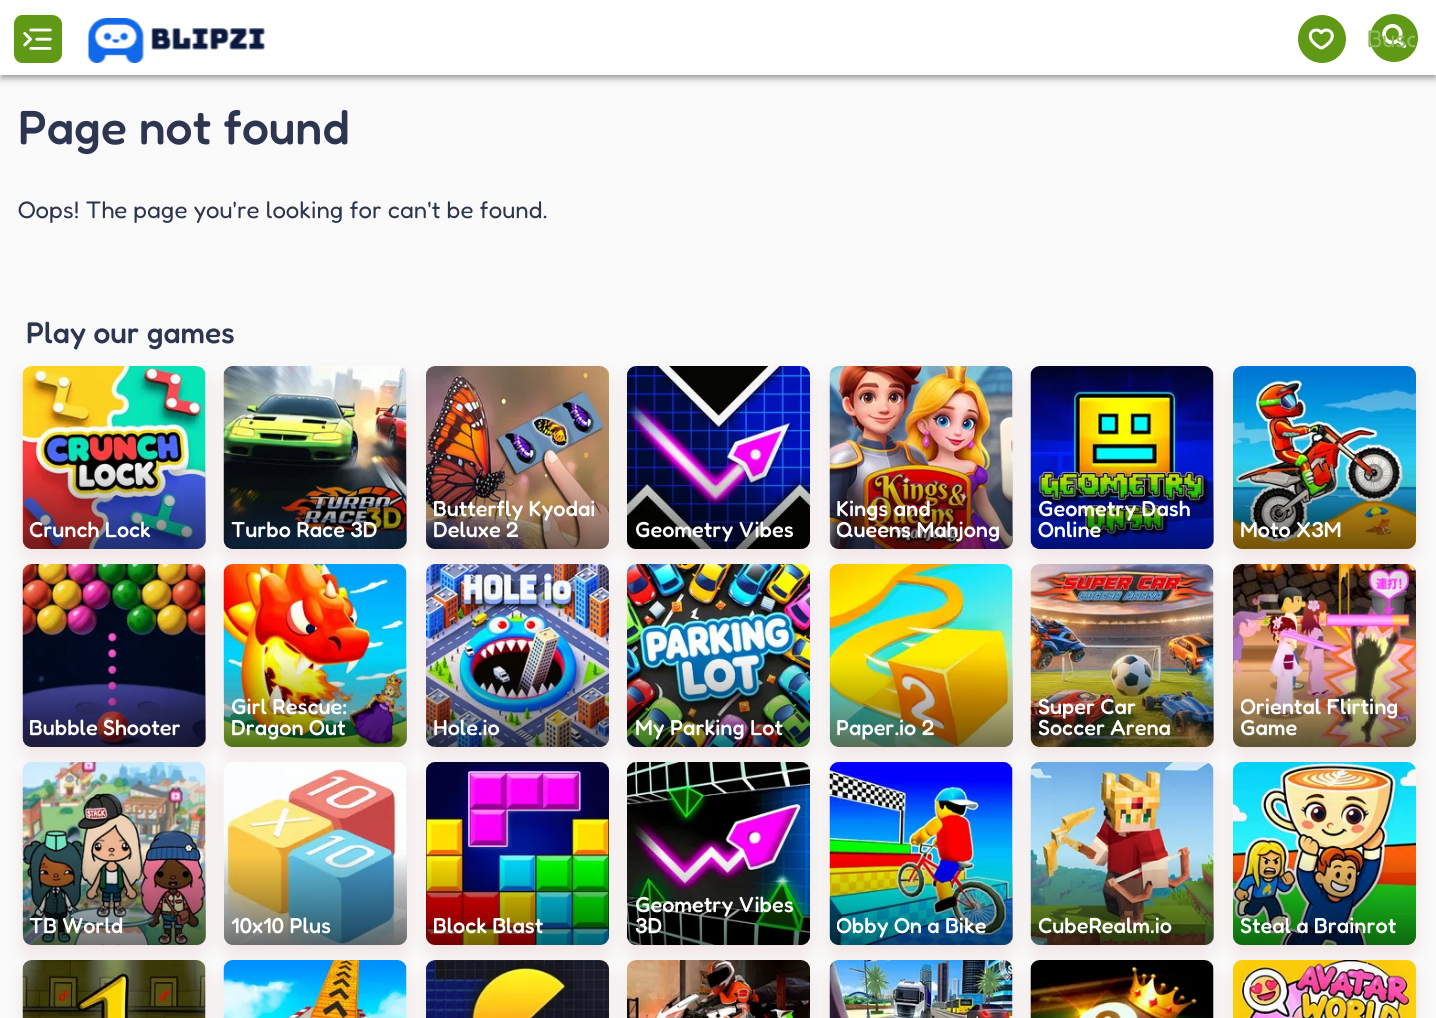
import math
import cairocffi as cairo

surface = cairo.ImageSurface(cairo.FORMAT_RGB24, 1436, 1018)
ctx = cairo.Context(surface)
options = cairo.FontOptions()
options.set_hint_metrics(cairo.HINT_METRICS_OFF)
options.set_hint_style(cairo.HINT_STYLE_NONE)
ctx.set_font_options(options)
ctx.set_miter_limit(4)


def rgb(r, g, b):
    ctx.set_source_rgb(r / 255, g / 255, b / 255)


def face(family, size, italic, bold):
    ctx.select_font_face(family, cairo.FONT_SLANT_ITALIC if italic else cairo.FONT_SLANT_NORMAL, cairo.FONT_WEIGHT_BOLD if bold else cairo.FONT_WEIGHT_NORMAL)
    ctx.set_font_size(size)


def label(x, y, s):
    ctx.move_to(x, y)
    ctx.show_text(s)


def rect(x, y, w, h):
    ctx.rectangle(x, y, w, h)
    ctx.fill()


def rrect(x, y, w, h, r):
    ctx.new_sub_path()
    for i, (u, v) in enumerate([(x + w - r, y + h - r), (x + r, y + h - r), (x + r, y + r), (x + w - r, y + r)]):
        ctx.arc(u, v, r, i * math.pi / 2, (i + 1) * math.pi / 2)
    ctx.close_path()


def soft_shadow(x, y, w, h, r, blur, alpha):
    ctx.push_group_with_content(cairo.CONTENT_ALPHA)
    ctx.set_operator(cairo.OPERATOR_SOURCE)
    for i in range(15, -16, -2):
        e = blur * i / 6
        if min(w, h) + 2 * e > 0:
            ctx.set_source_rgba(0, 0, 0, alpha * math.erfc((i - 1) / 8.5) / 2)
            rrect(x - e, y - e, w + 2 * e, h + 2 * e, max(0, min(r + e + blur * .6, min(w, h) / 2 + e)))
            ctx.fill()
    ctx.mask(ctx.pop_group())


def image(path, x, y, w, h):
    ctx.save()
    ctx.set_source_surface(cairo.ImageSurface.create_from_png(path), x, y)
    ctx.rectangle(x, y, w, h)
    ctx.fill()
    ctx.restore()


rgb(250, 250, 250)
ctx.paint()
rgb(0, 0, 0)
soft_shadow(0, 2, 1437, 75, 0, 6, 0.12)
soft_shadow(0, 5, 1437, 75, 0, 3, 0.14)
soft_shadow(3, 8, 1431, 69, 0, 2, 0.2)
rgb(255, 255, 255)
rect(0, 0, 1436, 75)
rgb(95, 153, 21)
ctx.new_path()
ctx.move_to(52, 15)
ctx.line_to(22, 15)
ctx.curve_to(18, 15, 14, 19, 14, 24)
ctx.line_to(14, 54)
ctx.curve_to(14, 59, 18, 63, 22, 63)
ctx.line_to(52, 63)
ctx.curve_to(57, 63, 62, 59, 62, 54)
ctx.line_to(62, 24)
ctx.curve_to(62, 19, 57, 15, 52, 15)
ctx.close_path()
ctx.fill()
image('image0.png', 23, 28, 29, 22)
image('image1.png', 88, 18, 177, 45)
ctx.arc(1322, 39, 22.5, 0, 2 * math.pi)
ctx.fill_preserve()
ctx.set_line_width(3)
ctx.stroke()
image('image2.png', 1308, 28, 26, 22)
ctx.arc(1394, 38, 22.5, 0, 2 * math.pi)
ctx.fill_preserve()
ctx.stroke()
image('image3.png', 1382, 24, 25, 24)
ctx.save()
rrect(1367, 11, 54, 54, 27)
ctx.clip()
ctx.rectangle(1367, 23, 48, 30)
ctx.clip()
face('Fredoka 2 Light', 24, 0, 0)
rgb(147, 186, 97)
label(1367, 47, 'Busc')
ctx.restore()
face('Fredoka Light', 48, 0, 0)
rgb(45, 53, 80)
label(18, 144, 'Page not found')
face('Fredoka 2 Light', 24, 0, 0)
label(18, 218, 'Oops! The page you\'re looking for can\'t be found.')
face('Fredoka Light', 30, 0, 0)
label(26, 343, 'Play our games')
rgb(211, 152, 152)
soft_shadow(23, 375, 183, 183, 9, 9, 0.24)
image('image4.png', 22, 366, 184, 183)
gradient = cairo.LinearGradient(114, 459, 114, 549)
gradient.add_color_stop_rgba(0, 0, 0, 0, 0)
gradient.add_color_stop_rgba(1, 0, 0, 0, 0.55)
ctx.set_source(gradient)
ctx.new_path()
ctx.move_to(23, 459)
ctx.line_to(206, 459)
ctx.line_to(206, 540)
ctx.curve_to(206, 545, 202, 549, 197, 549)
ctx.line_to(32, 549)
ctx.curve_to(27, 549, 23, 545, 23, 540)
ctx.close_path()
ctx.fill()
face('Fredoka Light', 21.75, 0, 0)
rgb(255, 255, 255)
label(29, 537, 'Crunch Lock')
rgb(211, 152, 152)
soft_shadow(224, 375, 183, 183, 9, 9, 0.24)
image('image5.png', 223, 366, 184, 183)
gradient = cairo.LinearGradient(315, 459, 315, 549)
gradient.add_color_stop_rgba(0, 0, 0, 0, 0)
gradient.add_color_stop_rgba(1, 0, 0, 0, 0.55)
ctx.set_source(gradient)
ctx.new_path()
ctx.move_to(224, 459)
ctx.line_to(407, 459)
ctx.line_to(407, 540)
ctx.curve_to(407, 545, 403, 549, 398, 549)
ctx.line_to(233, 549)
ctx.curve_to(228, 549, 224, 545, 224, 540)
ctx.close_path()
ctx.fill()
rgb(255, 255, 255)
label(231, 537, 'Turbo Race 3D')
rgb(211, 152, 152)
soft_shadow(426, 375, 183, 183, 9, 9, 0.24)
image('image6.png', 426, 366, 183, 183)
gradient = cairo.LinearGradient(518, 459, 518, 549)
gradient.add_color_stop_rgba(0, 0, 0, 0, 0)
gradient.add_color_stop_rgba(1, 0, 0, 0, 0.55)
ctx.set_source(gradient)
ctx.new_path()
ctx.move_to(426, 459)
ctx.line_to(609, 459)
ctx.line_to(609, 540)
ctx.curve_to(609, 545, 605, 549, 600, 549)
ctx.line_to(435, 549)
ctx.curve_to(430, 549, 426, 545, 426, 540)
ctx.close_path()
ctx.fill()
ctx.save()
ctx.rectangle(434, 498, 168, 44)
ctx.clip()
rgb(255, 255, 255)
label(433, 516, 'Butterfly Kyodai')
label(433, 537, 'Deluxe 2')
ctx.restore()
rgb(211, 152, 152)
soft_shadow(627, 375, 183, 183, 9, 9, 0.24)
image('image7.png', 627, 366, 183, 183)
gradient = cairo.LinearGradient(719, 459, 719, 549)
gradient.add_color_stop_rgba(0, 0, 0, 0, 0)
gradient.add_color_stop_rgba(1, 0, 0, 0, 0.55)
ctx.set_source(gradient)
ctx.new_path()
ctx.move_to(627, 459)
ctx.line_to(810, 459)
ctx.line_to(810, 540)
ctx.curve_to(810, 545, 806, 549, 801, 549)
ctx.line_to(636, 549)
ctx.curve_to(631, 549, 627, 545, 627, 540)
ctx.close_path()
ctx.fill()
rgb(255, 255, 255)
label(635, 537, 'Geometry Vibes')
rgb(211, 152, 152)
soft_shadow(830, 375, 183, 183, 9, 9, 0.24)
image('image8.png', 829, 366, 184, 183)
gradient = cairo.LinearGradient(921, 459, 921, 549)
gradient.add_color_stop_rgba(0, 0, 0, 0, 0)
gradient.add_color_stop_rgba(1, 0, 0, 0, 0.55)
ctx.set_source(gradient)
ctx.new_path()
ctx.move_to(830, 459)
ctx.line_to(1013, 459)
ctx.line_to(1013, 540)
ctx.curve_to(1013, 545, 1009, 549, 1004, 549)
ctx.line_to(839, 549)
ctx.curve_to(834, 549, 830, 545, 830, 540)
ctx.close_path()
ctx.fill()
rgb(255, 255, 255)
label(836, 516, 'Kings and')
ctx.save()
ctx.rectangle(837, 498, 168, 44)
ctx.clip()
label(836, 537, 'Queens Mahjong')
ctx.restore()
rgb(211, 152, 152)
soft_shadow(1031, 375, 183, 183, 9, 9, 0.24)
image('image9.png', 1030, 366, 184, 183)
gradient = cairo.LinearGradient(1122, 459, 1122, 549)
gradient.add_color_stop_rgba(0, 0, 0, 0, 0)
gradient.add_color_stop_rgba(1, 0, 0, 0, 0.55)
ctx.set_source(gradient)
ctx.new_path()
ctx.move_to(1031, 459)
ctx.line_to(1214, 459)
ctx.line_to(1214, 540)
ctx.curve_to(1214, 545, 1210, 549, 1205, 549)
ctx.line_to(1040, 549)
ctx.curve_to(1035, 549, 1031, 545, 1031, 540)
ctx.close_path()
ctx.fill()
rgb(255, 255, 255)
label(1038, 516, 'Geometry Dash')
label(1038, 537, 'Online')
rgb(211, 152, 152)
soft_shadow(1233, 375, 183, 183, 9, 9, 0.24)
image('image10.png', 1233, 366, 183, 183)
gradient = cairo.LinearGradient(1325, 459, 1325, 549)
gradient.add_color_stop_rgba(0, 0, 0, 0, 0)
gradient.add_color_stop_rgba(1, 0, 0, 0, 0.55)
ctx.set_source(gradient)
ctx.new_path()
ctx.move_to(1233, 459)
ctx.line_to(1416, 459)
ctx.line_to(1416, 540)
ctx.curve_to(1416, 545, 1412, 549, 1407, 549)
ctx.line_to(1242, 549)
ctx.curve_to(1237, 549, 1233, 545, 1233, 540)
ctx.close_path()
ctx.fill()
rgb(255, 255, 255)
label(1240, 537, 'Moto X3M')
rgb(211, 152, 152)
soft_shadow(23, 573, 183, 183, 9, 9, 0.24)
image('image11.png', 22, 564, 184, 183)
gradient = cairo.LinearGradient(114, 657, 114, 747)
gradient.add_color_stop_rgba(0, 0, 0, 0, 0)
gradient.add_color_stop_rgba(1, 0, 0, 0, 0.55)
ctx.set_source(gradient)
ctx.new_path()
ctx.move_to(23, 657)
ctx.line_to(206, 657)
ctx.line_to(206, 738)
ctx.curve_to(206, 743, 202, 747, 197, 747)
ctx.line_to(32, 747)
ctx.curve_to(27, 747, 23, 743, 23, 738)
ctx.close_path()
ctx.fill()
rgb(255, 255, 255)
label(29, 735, 'Bubble Shooter')
rgb(211, 152, 152)
soft_shadow(224, 573, 183, 183, 9, 9, 0.24)
image('image12.png', 223, 564, 184, 183)
gradient = cairo.LinearGradient(315, 657, 315, 747)
gradient.add_color_stop_rgba(0, 0, 0, 0, 0)
gradient.add_color_stop_rgba(1, 0, 0, 0, 0.55)
ctx.set_source(gradient)
ctx.new_path()
ctx.move_to(224, 657)
ctx.line_to(407, 657)
ctx.line_to(407, 738)
ctx.curve_to(407, 743, 403, 747, 398, 747)
ctx.line_to(233, 747)
ctx.curve_to(228, 747, 224, 743, 224, 738)
ctx.close_path()
ctx.fill()
rgb(255, 255, 255)
label(231, 714, 'Girl Rescue:')
label(231, 735, 'Dragon Out')
rgb(211, 152, 152)
soft_shadow(426, 573, 183, 183, 9, 9, 0.24)
image('image13.png', 426, 564, 183, 183)
gradient = cairo.LinearGradient(518, 657, 518, 747)
gradient.add_color_stop_rgba(0, 0, 0, 0, 0)
gradient.add_color_stop_rgba(1, 0, 0, 0, 0.55)
ctx.set_source(gradient)
ctx.new_path()
ctx.move_to(426, 657)
ctx.line_to(609, 657)
ctx.line_to(609, 738)
ctx.curve_to(609, 743, 605, 747, 600, 747)
ctx.line_to(435, 747)
ctx.curve_to(430, 747, 426, 743, 426, 738)
ctx.close_path()
ctx.fill()
rgb(255, 255, 255)
label(433, 735, 'Hole.io')
rgb(211, 152, 152)
soft_shadow(627, 573, 183, 183, 9, 9, 0.24)
image('image14.png', 627, 564, 183, 183)
gradient = cairo.LinearGradient(719, 657, 719, 747)
gradient.add_color_stop_rgba(0, 0, 0, 0, 0)
gradient.add_color_stop_rgba(1, 0, 0, 0, 0.55)
ctx.set_source(gradient)
ctx.new_path()
ctx.move_to(627, 657)
ctx.line_to(810, 657)
ctx.line_to(810, 738)
ctx.curve_to(810, 743, 806, 747, 801, 747)
ctx.line_to(636, 747)
ctx.curve_to(631, 747, 627, 743, 627, 738)
ctx.close_path()
ctx.fill()
rgb(255, 255, 255)
label(635, 735, 'My Parking Lot')
rgb(211, 152, 152)
soft_shadow(830, 573, 183, 183, 9, 9, 0.24)
image('image15.png', 829, 564, 184, 183)
gradient = cairo.LinearGradient(921, 657, 921, 747)
gradient.add_color_stop_rgba(0, 0, 0, 0, 0)
gradient.add_color_stop_rgba(1, 0, 0, 0, 0.55)
ctx.set_source(gradient)
ctx.new_path()
ctx.move_to(830, 657)
ctx.line_to(1013, 657)
ctx.line_to(1013, 738)
ctx.curve_to(1013, 743, 1009, 747, 1004, 747)
ctx.line_to(839, 747)
ctx.curve_to(834, 747, 830, 743, 830, 738)
ctx.close_path()
ctx.fill()
rgb(255, 255, 255)
label(836, 735, 'Paper.io 2')
rgb(211, 152, 152)
soft_shadow(1031, 573, 183, 183, 9, 9, 0.24)
image('image16.png', 1030, 564, 184, 183)
gradient = cairo.LinearGradient(1122, 657, 1122, 747)
gradient.add_color_stop_rgba(0, 0, 0, 0, 0)
gradient.add_color_stop_rgba(1, 0, 0, 0, 0.55)
ctx.set_source(gradient)
ctx.new_path()
ctx.move_to(1031, 657)
ctx.line_to(1214, 657)
ctx.line_to(1214, 738)
ctx.curve_to(1214, 743, 1210, 747, 1205, 747)
ctx.line_to(1040, 747)
ctx.curve_to(1035, 747, 1031, 743, 1031, 738)
ctx.close_path()
ctx.fill()
rgb(255, 255, 255)
label(1038, 714, 'Super Car')
label(1038, 735, 'Soccer Arena')
rgb(211, 152, 152)
soft_shadow(1233, 573, 183, 183, 9, 9, 0.24)
image('image17.png', 1233, 564, 183, 183)
gradient = cairo.LinearGradient(1325, 657, 1325, 747)
gradient.add_color_stop_rgba(0, 0, 0, 0, 0)
gradient.add_color_stop_rgba(1, 0, 0, 0, 0.55)
ctx.set_source(gradient)
ctx.new_path()
ctx.move_to(1233, 657)
ctx.line_to(1416, 657)
ctx.line_to(1416, 738)
ctx.curve_to(1416, 743, 1412, 747, 1407, 747)
ctx.line_to(1242, 747)
ctx.curve_to(1237, 747, 1233, 743, 1233, 738)
ctx.close_path()
ctx.fill()
ctx.save()
ctx.rectangle(1241, 696, 168, 44)
ctx.clip()
rgb(255, 255, 255)
label(1240, 714, 'Oriental Flirting')
label(1240, 735, 'Game')
ctx.restore()
rgb(211, 152, 152)
soft_shadow(23, 771, 183, 183, 9, 9, 0.24)
image('image18.png', 22, 762, 184, 183)
gradient = cairo.LinearGradient(114, 855, 114, 945)
gradient.add_color_stop_rgba(0, 0, 0, 0, 0)
gradient.add_color_stop_rgba(1, 0, 0, 0, 0.55)
ctx.set_source(gradient)
ctx.new_path()
ctx.move_to(23, 855)
ctx.line_to(206, 855)
ctx.line_to(206, 936)
ctx.curve_to(206, 941, 202, 945, 197, 945)
ctx.line_to(32, 945)
ctx.curve_to(27, 945, 23, 941, 23, 936)
ctx.close_path()
ctx.fill()
rgb(255, 255, 255)
label(29, 933, 'TB World')
rgb(211, 152, 152)
soft_shadow(224, 771, 183, 183, 9, 9, 0.24)
image('image19.png', 223, 762, 184, 183)
gradient = cairo.LinearGradient(315, 855, 315, 945)
gradient.add_color_stop_rgba(0, 0, 0, 0, 0)
gradient.add_color_stop_rgba(1, 0, 0, 0, 0.55)
ctx.set_source(gradient)
ctx.new_path()
ctx.move_to(224, 855)
ctx.line_to(407, 855)
ctx.line_to(407, 936)
ctx.curve_to(407, 941, 403, 945, 398, 945)
ctx.line_to(233, 945)
ctx.curve_to(228, 945, 224, 941, 224, 936)
ctx.close_path()
ctx.fill()
rgb(255, 255, 255)
label(231, 933, '10x10 Plus')
rgb(211, 152, 152)
soft_shadow(426, 771, 183, 183, 9, 9, 0.24)
image('image20.png', 426, 762, 183, 183)
gradient = cairo.LinearGradient(518, 855, 518, 945)
gradient.add_color_stop_rgba(0, 0, 0, 0, 0)
gradient.add_color_stop_rgba(1, 0, 0, 0, 0.55)
ctx.set_source(gradient)
ctx.new_path()
ctx.move_to(426, 855)
ctx.line_to(609, 855)
ctx.line_to(609, 936)
ctx.curve_to(609, 941, 605, 945, 600, 945)
ctx.line_to(435, 945)
ctx.curve_to(430, 945, 426, 941, 426, 936)
ctx.close_path()
ctx.fill()
ctx.save()
ctx.rectangle(434, 915, 168, 23)
ctx.clip()
rgb(255, 255, 255)
label(433, 933, 'Block Blast')
ctx.restore()
rgb(211, 152, 152)
soft_shadow(627, 771, 183, 183, 9, 9, 0.24)
image('image21.png', 627, 762, 183, 183)
gradient = cairo.LinearGradient(719, 855, 719, 945)
gradient.add_color_stop_rgba(0, 0, 0, 0, 0)
gradient.add_color_stop_rgba(1, 0, 0, 0, 0.55)
ctx.set_source(gradient)
ctx.new_path()
ctx.move_to(627, 855)
ctx.line_to(810, 855)
ctx.line_to(810, 936)
ctx.curve_to(810, 941, 806, 945, 801, 945)
ctx.line_to(636, 945)
ctx.curve_to(631, 945, 627, 941, 627, 936)
ctx.close_path()
ctx.fill()
rgb(255, 255, 255)
label(635, 912, 'Geometry Vibes')
label(635, 933, '3D')
rgb(211, 152, 152)
soft_shadow(830, 771, 183, 183, 9, 9, 0.24)
image('image22.png', 829, 762, 184, 183)
gradient = cairo.LinearGradient(921, 855, 921, 945)
gradient.add_color_stop_rgba(0, 0, 0, 0, 0)
gradient.add_color_stop_rgba(1, 0, 0, 0, 0.55)
ctx.set_source(gradient)
ctx.new_path()
ctx.move_to(830, 855)
ctx.line_to(1013, 855)
ctx.line_to(1013, 936)
ctx.curve_to(1013, 941, 1009, 945, 1004, 945)
ctx.line_to(839, 945)
ctx.curve_to(834, 945, 830, 941, 830, 936)
ctx.close_path()
ctx.fill()
ctx.save()
ctx.rectangle(837, 915, 168, 23)
ctx.clip()
rgb(255, 255, 255)
label(836, 933, 'Obby On a Bike')
ctx.restore()
rgb(211, 152, 152)
soft_shadow(1031, 771, 183, 183, 9, 9, 0.24)
image('image23.png', 1030, 762, 184, 183)
gradient = cairo.LinearGradient(1122, 855, 1122, 945)
gradient.add_color_stop_rgba(0, 0, 0, 0, 0)
gradient.add_color_stop_rgba(1, 0, 0, 0, 0.55)
ctx.set_source(gradient)
ctx.new_path()
ctx.move_to(1031, 855)
ctx.line_to(1214, 855)
ctx.line_to(1214, 936)
ctx.curve_to(1214, 941, 1210, 945, 1205, 945)
ctx.line_to(1040, 945)
ctx.curve_to(1035, 945, 1031, 941, 1031, 936)
ctx.close_path()
ctx.fill()
rgb(255, 255, 255)
label(1038, 933, 'CubeRealm.io')
rgb(211, 152, 152)
soft_shadow(1233, 771, 183, 183, 9, 9, 0.24)
image('image24.png', 1233, 762, 183, 183)
gradient = cairo.LinearGradient(1325, 855, 1325, 945)
gradient.add_color_stop_rgba(0, 0, 0, 0, 0)
gradient.add_color_stop_rgba(1, 0, 0, 0, 0.55)
ctx.set_source(gradient)
ctx.new_path()
ctx.move_to(1233, 855)
ctx.line_to(1416, 855)
ctx.line_to(1416, 936)
ctx.curve_to(1416, 941, 1412, 945, 1407, 945)
ctx.line_to(1242, 945)
ctx.curve_to(1237, 945, 1233, 941, 1233, 936)
ctx.close_path()
ctx.fill()
ctx.save()
ctx.rectangle(1241, 915, 168, 23)
ctx.clip()
rgb(255, 255, 255)
label(1240, 933, 'Steal a Brainrot')
ctx.restore()
rgb(211, 152, 152)
soft_shadow(23, 969, 183, 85, 9, 9, 0.24)
image('image25.png', 22, 960, 184, 58)
soft_shadow(224, 969, 183, 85, 9, 9, 0.24)
image('image26.png', 223, 960, 184, 58)
soft_shadow(426, 969, 183, 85, 9, 9, 0.24)
image('image27.png', 426, 960, 183, 58)
soft_shadow(627, 969, 183, 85, 9, 9, 0.24)
image('image28.png', 627, 960, 183, 58)
soft_shadow(830, 969, 183, 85, 9, 9, 0.24)
image('image29.png', 829, 960, 184, 58)
soft_shadow(1031, 969, 183, 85, 9, 9, 0.24)
image('image30.png', 1030, 960, 184, 58)
soft_shadow(1233, 969, 183, 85, 9, 9, 0.24)
image('image31.png', 1233, 960, 183, 58)
surface.write_to_png('render.png')
